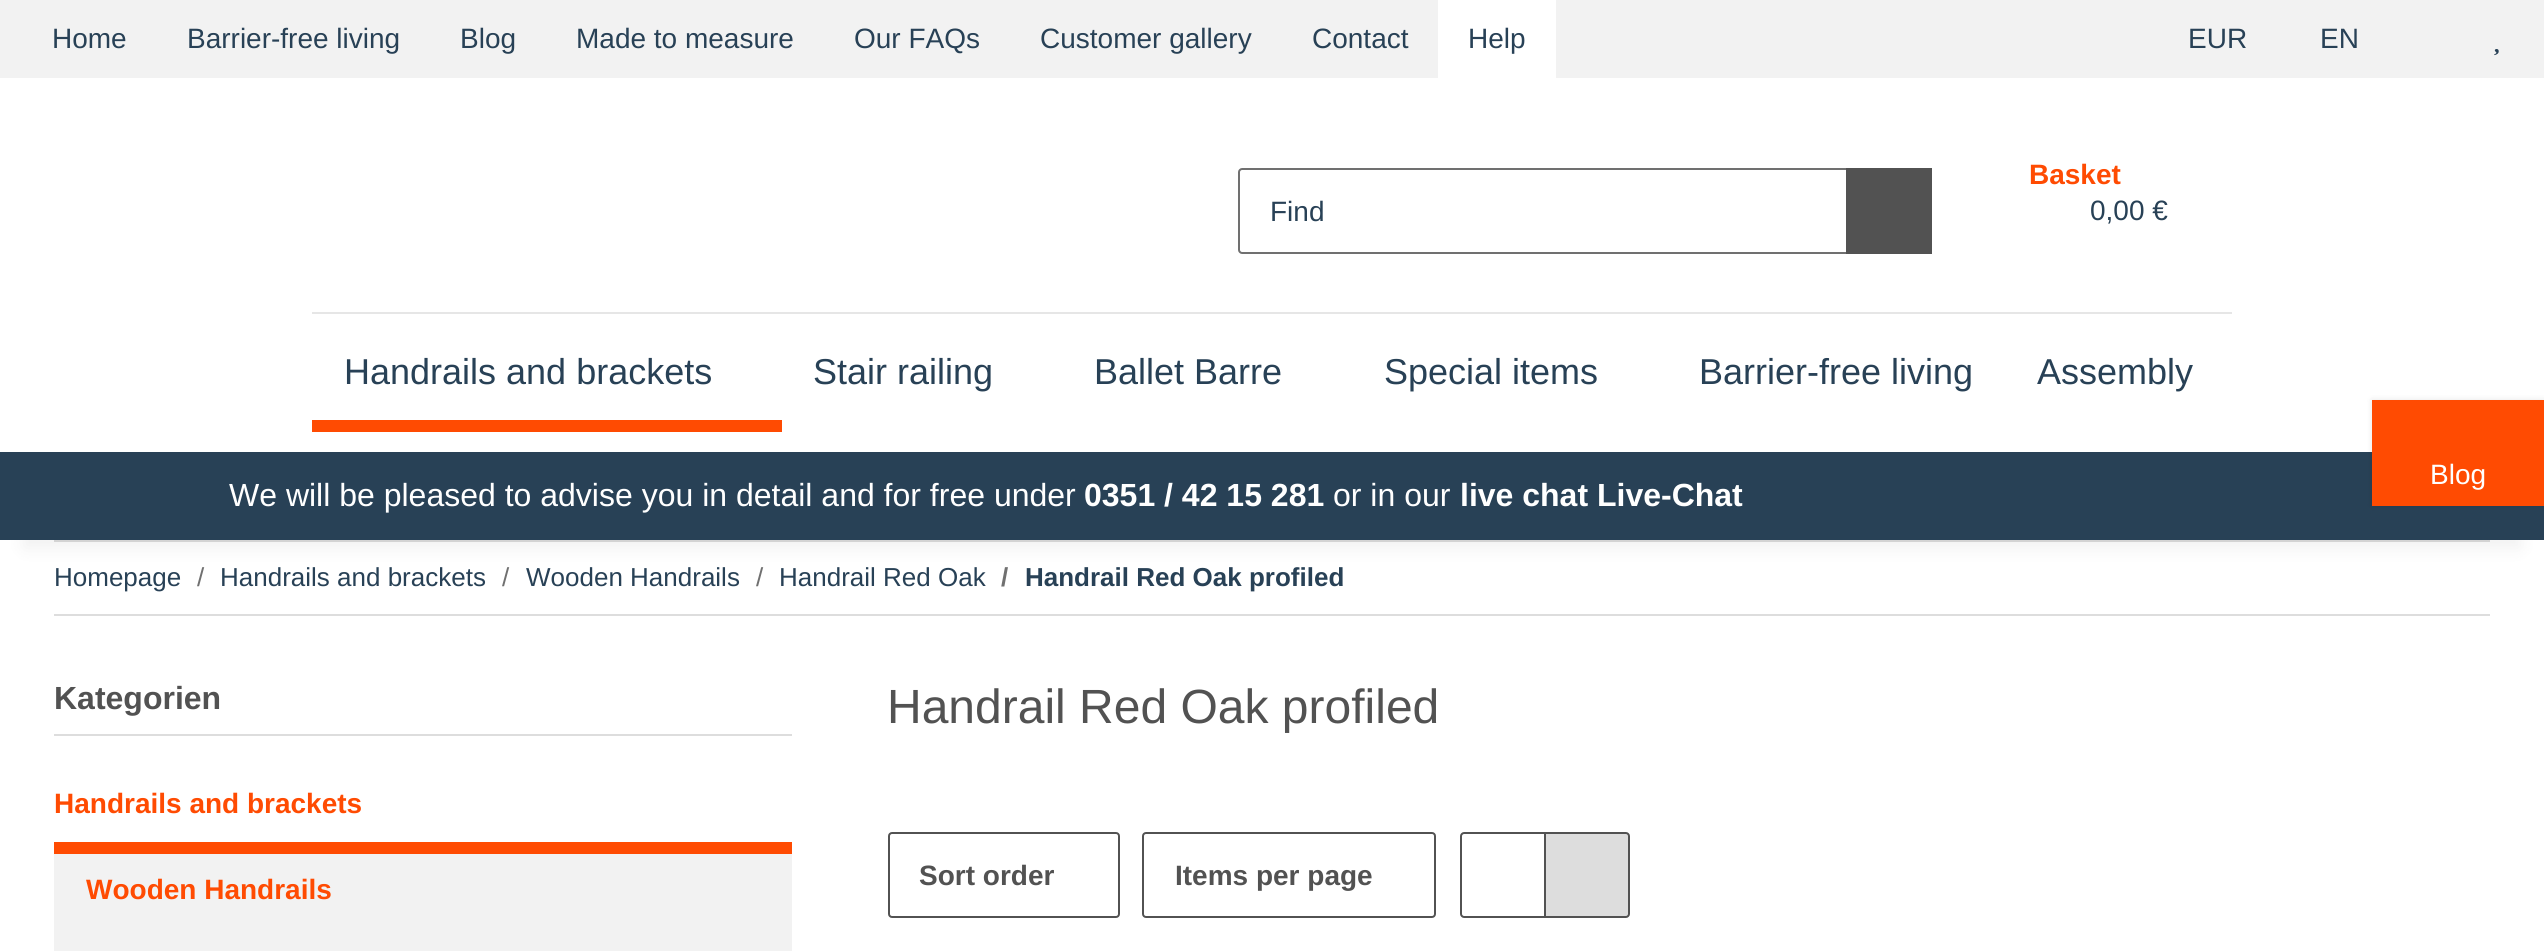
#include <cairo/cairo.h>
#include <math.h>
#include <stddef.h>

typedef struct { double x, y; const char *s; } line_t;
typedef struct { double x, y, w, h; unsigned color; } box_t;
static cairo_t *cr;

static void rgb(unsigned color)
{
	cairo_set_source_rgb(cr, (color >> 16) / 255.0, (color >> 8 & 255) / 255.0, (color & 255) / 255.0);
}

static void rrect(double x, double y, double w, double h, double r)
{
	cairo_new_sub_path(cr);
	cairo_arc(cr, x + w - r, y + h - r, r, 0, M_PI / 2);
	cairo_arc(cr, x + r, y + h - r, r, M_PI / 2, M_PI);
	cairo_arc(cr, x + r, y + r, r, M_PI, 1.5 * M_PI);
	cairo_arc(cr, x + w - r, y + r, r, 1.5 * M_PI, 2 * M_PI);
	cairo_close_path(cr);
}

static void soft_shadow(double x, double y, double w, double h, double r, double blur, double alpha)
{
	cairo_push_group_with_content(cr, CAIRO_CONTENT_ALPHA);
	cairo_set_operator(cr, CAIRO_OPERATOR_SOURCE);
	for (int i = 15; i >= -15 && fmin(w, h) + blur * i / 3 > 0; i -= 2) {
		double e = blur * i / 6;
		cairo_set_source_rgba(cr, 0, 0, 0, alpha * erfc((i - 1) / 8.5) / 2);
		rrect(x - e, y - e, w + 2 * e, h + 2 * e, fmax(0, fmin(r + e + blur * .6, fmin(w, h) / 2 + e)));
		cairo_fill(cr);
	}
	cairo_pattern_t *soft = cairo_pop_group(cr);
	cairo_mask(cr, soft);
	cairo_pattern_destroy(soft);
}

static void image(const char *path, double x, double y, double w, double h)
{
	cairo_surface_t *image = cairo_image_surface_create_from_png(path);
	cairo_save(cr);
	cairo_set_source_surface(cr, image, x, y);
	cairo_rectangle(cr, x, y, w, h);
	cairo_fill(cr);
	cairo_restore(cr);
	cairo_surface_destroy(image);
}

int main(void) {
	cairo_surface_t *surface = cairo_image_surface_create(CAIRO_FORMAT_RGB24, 2544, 951);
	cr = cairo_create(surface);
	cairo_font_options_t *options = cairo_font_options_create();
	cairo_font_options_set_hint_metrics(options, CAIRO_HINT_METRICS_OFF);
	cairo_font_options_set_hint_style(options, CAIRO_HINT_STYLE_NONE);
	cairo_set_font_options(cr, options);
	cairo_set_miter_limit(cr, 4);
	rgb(0xf2f2f2);
	cairo_paint(cr);
	rgb(0xffffff);
	cairo_rectangle(cr, 1438, 0, 118, 78);
	cairo_fill(cr);
	image("img/1.png", 2494, 49, 5, 7);
	cairo_rectangle(cr, 0, 540, 2544, 411);
	cairo_fill(cr);
	rgb(0xdddddd);
	cairo_rectangle(cr, 54, 540, 2436, 2);
	cairo_fill(cr);
	rgb(0x000000);
	soft_shadow(24, 134, 2496, 414, 0, 9, 0.06);
	rgb(0xffffff);
	cairo_rectangle(cr, 0, 78, 2544, 374);
	cairo_fill(cr);
	rgb(0xe6e6e6);
	cairo_rectangle(cr, 312, 312, 1920, 2);
	cairo_fill(cr);
	cairo_new_path(cr);
	cairo_move_to(cr, 1242, 169);
	cairo_line_to(cr, 1847, 169);
	cairo_line_to(cr, 1847, 253);
	cairo_line_to(cr, 1242, 253);
	cairo_curve_to(cr, 1240.5, 253, 1239, 251.5, 1239, 250);
	cairo_line_to(cr, 1239, 172);
	cairo_curve_to(cr, 1239, 170.5, 1240.5, 169, 1242, 169);
	cairo_close_path(cr);
	rgb(0x707070);
	cairo_stroke(cr);
	{
		static const box_t items[] = {
			{1846, 168, 86, 86, 0x525252},
			{312, 420, 470, 12, 0xff4b02},
			{0, 452, 2544, 88, 0x284156},
		};
		for (size_t i = 0; i < sizeof items / sizeof *items; i++) {
			rgb(items[i].color);
			cairo_rectangle(cr, items[i].x, items[i].y, items[i].w, items[i].h);
			cairo_fill(cr);
		}
	}
	rgb(0x000000);
	soft_shadow(2372, 400, 172, 106, 0, 3, 0.1);
	{
		static const box_t items[] = {
			{2372, 400, 172, 106, 0xff4b02},
			{54, 614, 2436, 2, 0xdddddd},
			{54, 734, 738, 2, 0xdddddd},
			{54, 842, 738, 12, 0xff4b02},
			{54, 854, 738, 97, 0xf2f2f2},
		};
		for (size_t i = 0; i < sizeof items / sizeof *items; i++) {
			rgb(items[i].color);
			cairo_rectangle(cr, items[i].x, items[i].y, items[i].w, items[i].h);
			cairo_fill(cr);
		}
	}
	rrect(889, 833, 230, 84, 3);
	rgb(0x525252);
	cairo_stroke(cr);
	rrect(1143, 833, 292, 84, 3);
	cairo_stroke(cr);
	cairo_new_path(cr);
	cairo_move_to(cr, 1464, 833);
	cairo_line_to(cr, 1545, 833);
	cairo_line_to(cr, 1545, 917);
	cairo_line_to(cr, 1464, 917);
	cairo_curve_to(cr, 1462.5, 917, 1461, 915.5, 1461, 914);
	cairo_line_to(cr, 1461, 836);
	cairo_curve_to(cr, 1461, 834.5, 1462.5, 833, 1464, 833);
	cairo_close_path(cr);
	cairo_stroke(cr);
	rgb(0xdddddd);
	cairo_new_path(cr);
	cairo_move_to(cr, 1545, 833);
	cairo_line_to(cr, 1626, 833);
	cairo_curve_to(cr, 1627.5, 833, 1629, 834.5, 1629, 836);
	cairo_line_to(cr, 1629, 914);
	cairo_curve_to(cr, 1629, 915.5, 1627.5, 917, 1626, 917);
	cairo_line_to(cr, 1545, 917);
	cairo_close_path(cr);
	cairo_fill_preserve(cr);
	rgb(0x525252);
	cairo_stroke(cr);
	cairo_select_font_face(cr, "Liberation Sans", CAIRO_FONT_SLANT_NORMAL, CAIRO_FONT_WEIGHT_NORMAL);
	cairo_set_font_size(cr, 28);
	rgb(0x284156);
	{
		static const line_t items[] = {
			{52, 48, "Home"},
			{187, 48, "Barrier-free living"},
			{460, 48, "Blog"},
			{576, 48, "Made to measure"},
			{854, 48, "Our FAQs"},
			{1040, 48, "Customer gallery"},
			{1312, 48, "Contact"},
			{1468, 48, "Help"},
			{2188, 48, "EUR"},
			{2320, 48, "EN"},
			{1270, 221, "Find"},
		};
		for (size_t i = 0; i < sizeof items / sizeof *items; i++) {
			cairo_move_to(cr, items[i].x, items[i].y);
			cairo_show_text(cr, items[i].s);
		}
	}
	cairo_select_font_face(cr, "Liberation Sans", CAIRO_FONT_SLANT_NORMAL, CAIRO_FONT_WEIGHT_BOLD);
	rgb(0xff4b02);
	cairo_move_to(cr, 2029, 184);
	cairo_show_text(cr, "Basket");
	cairo_select_font_face(cr, "Liberation Sans", CAIRO_FONT_SLANT_NORMAL, CAIRO_FONT_WEIGHT_NORMAL);
	rgb(0x284156);
	cairo_move_to(cr, 2090, 220);
	cairo_show_text(cr, "0,00 €");
	cairo_set_font_size(cr, 36);
	{
		static const line_t items[] = {
			{344, 384, "Handrails and brackets"},
			{813, 384, "Stair railing"},
			{1094, 384, "Ballet Barre"},
			{1384, 384, "Special items"},
			{1699, 384, "Barrier-free living"},
			{2037, 384, "Assembly"},
		};
		for (size_t i = 0; i < sizeof items / sizeof *items; i++) {
			cairo_move_to(cr, items[i].x, items[i].y);
			cairo_show_text(cr, items[i].s);
		}
	}
	cairo_set_font_size(cr, 32);
	rgb(0xffffff);
	cairo_move_to(cr, 229, 506);
	cairo_show_text(cr, "We will be pleased to advise you in detail and for free under");
	cairo_select_font_face(cr, "Liberation Sans", CAIRO_FONT_SLANT_NORMAL, CAIRO_FONT_WEIGHT_BOLD);
	cairo_move_to(cr, 1084, 506);
	cairo_show_text(cr, "0351 / 42 15 281");
	cairo_select_font_face(cr, "Liberation Sans", CAIRO_FONT_SLANT_NORMAL, CAIRO_FONT_WEIGHT_NORMAL);
	cairo_move_to(cr, 1333, 506);
	cairo_show_text(cr, "or in our");
	cairo_select_font_face(cr, "Liberation Sans", CAIRO_FONT_SLANT_NORMAL, CAIRO_FONT_WEIGHT_BOLD);
	cairo_move_to(cr, 1460, 506);
	cairo_show_text(cr, "live chat Live-Chat");
	cairo_select_font_face(cr, "Liberation Sans", CAIRO_FONT_SLANT_NORMAL, CAIRO_FONT_WEIGHT_NORMAL);
	cairo_set_font_size(cr, 28);
	cairo_move_to(cr, 2430, 484);
	cairo_show_text(cr, "Blog");
	cairo_set_font_size(cr, 26);
	rgb(0x284156);
	cairo_move_to(cr, 54, 586);
	cairo_show_text(cr, "Homepage");
	rgb(0x707070);
	cairo_move_to(cr, 197, 586);
	cairo_show_text(cr, "/");
	rgb(0x284156);
	cairo_move_to(cr, 220, 586);
	cairo_show_text(cr, "Handrails and brackets");
	rgb(0x707070);
	cairo_move_to(cr, 502, 586);
	cairo_show_text(cr, "/");
	rgb(0x284156);
	cairo_move_to(cr, 526, 586);
	cairo_show_text(cr, "Wooden Handrails");
	rgb(0x707070);
	cairo_move_to(cr, 756, 586);
	cairo_show_text(cr, "/");
	rgb(0x284156);
	cairo_move_to(cr, 779, 586);
	cairo_show_text(cr, "Handrail Red Oak");
	cairo_select_font_face(cr, "Liberation Sans", CAIRO_FONT_SLANT_NORMAL, CAIRO_FONT_WEIGHT_BOLD);
	rgb(0x707070);
	cairo_move_to(cr, 1001, 586);
	cairo_show_text(cr, "/");
	rgb(0x284156);
	cairo_move_to(cr, 1025, 586);
	cairo_show_text(cr, "Handrail Red Oak profiled");
	cairo_set_font_size(cr, 32);
	rgb(0x525252);
	cairo_move_to(cr, 54, 709);
	cairo_show_text(cr, "Kategorien");
	cairo_set_font_size(cr, 28);
	rgb(0xff4b02);
	cairo_move_to(cr, 54, 813);
	cairo_show_text(cr, "Handrails and brackets");
	cairo_move_to(cr, 86, 899);
	cairo_show_text(cr, "Wooden Handrails");
	cairo_select_font_face(cr, "Liberation Sans", CAIRO_FONT_SLANT_NORMAL, CAIRO_FONT_WEIGHT_NORMAL);
	cairo_set_font_size(cr, 48);
	rgb(0x525252);
	cairo_move_to(cr, 887, 723);
	cairo_show_text(cr, "Handrail Red Oak profiled");
	cairo_select_font_face(cr, "Liberation Sans", CAIRO_FONT_SLANT_NORMAL, CAIRO_FONT_WEIGHT_BOLD);
	cairo_set_font_size(cr, 28);
	cairo_move_to(cr, 919, 885);
	cairo_show_text(cr, "Sort order");
	cairo_move_to(cr, 1175, 885);
	cairo_show_text(cr, "Items per page");
	cairo_surface_write_to_png(surface, "page.png");
	cairo_font_options_destroy(options);
	cairo_destroy(cr);
	cairo_surface_destroy(surface);
	return 0;
}
